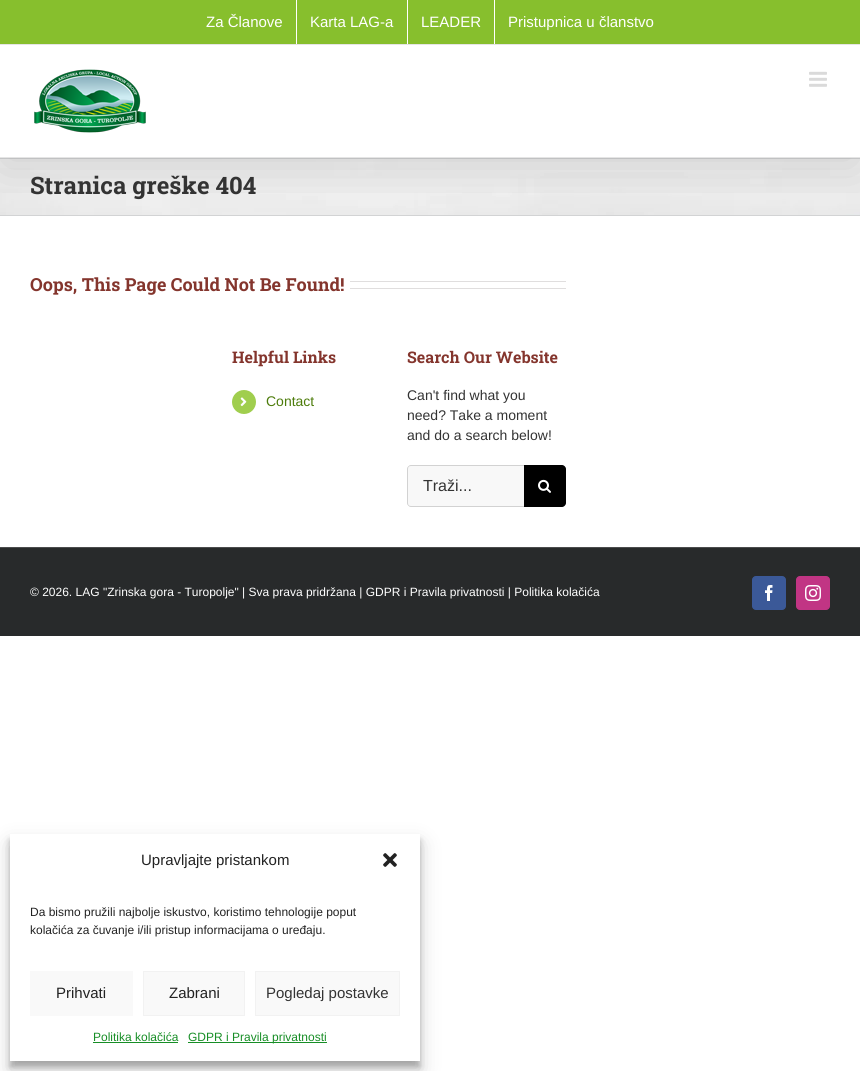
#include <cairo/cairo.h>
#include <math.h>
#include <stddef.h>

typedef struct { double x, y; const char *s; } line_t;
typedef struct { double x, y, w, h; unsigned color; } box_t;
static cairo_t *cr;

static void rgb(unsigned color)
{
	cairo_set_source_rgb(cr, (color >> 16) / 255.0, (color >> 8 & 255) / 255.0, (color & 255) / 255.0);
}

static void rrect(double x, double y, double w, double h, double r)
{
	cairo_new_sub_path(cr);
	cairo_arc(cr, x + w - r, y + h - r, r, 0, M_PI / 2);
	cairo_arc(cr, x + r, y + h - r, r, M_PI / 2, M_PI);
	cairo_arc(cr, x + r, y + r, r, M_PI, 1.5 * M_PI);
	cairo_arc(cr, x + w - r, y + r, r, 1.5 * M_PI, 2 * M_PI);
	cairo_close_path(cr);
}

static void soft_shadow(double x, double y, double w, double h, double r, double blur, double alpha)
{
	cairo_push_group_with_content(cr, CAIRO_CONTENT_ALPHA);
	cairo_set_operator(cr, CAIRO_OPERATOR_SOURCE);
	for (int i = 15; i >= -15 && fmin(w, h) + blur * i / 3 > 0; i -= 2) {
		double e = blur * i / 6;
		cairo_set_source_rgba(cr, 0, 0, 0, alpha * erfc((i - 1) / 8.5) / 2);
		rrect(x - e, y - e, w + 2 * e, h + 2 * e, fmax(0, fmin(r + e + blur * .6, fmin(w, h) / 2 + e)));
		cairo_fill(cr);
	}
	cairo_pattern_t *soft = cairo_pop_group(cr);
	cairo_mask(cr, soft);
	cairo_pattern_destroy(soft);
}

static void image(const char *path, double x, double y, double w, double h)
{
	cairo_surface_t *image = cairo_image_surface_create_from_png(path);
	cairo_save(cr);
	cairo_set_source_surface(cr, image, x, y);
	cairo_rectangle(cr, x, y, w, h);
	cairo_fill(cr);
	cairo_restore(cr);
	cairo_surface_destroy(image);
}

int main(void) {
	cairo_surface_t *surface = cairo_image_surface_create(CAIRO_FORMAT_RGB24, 860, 1071);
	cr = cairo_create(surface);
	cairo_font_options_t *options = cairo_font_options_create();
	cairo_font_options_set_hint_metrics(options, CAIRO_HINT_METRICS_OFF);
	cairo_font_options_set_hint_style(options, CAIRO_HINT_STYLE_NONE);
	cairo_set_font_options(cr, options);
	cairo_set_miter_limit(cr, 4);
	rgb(0xffffff);
	cairo_paint(cr);
	image("img/3.png", 0, 159, 860, 56);
	rgb(0xd2d3d4);
	cairo_rectangle(cr, 0, 158, 860, 1);
	cairo_fill(cr);
	cairo_rectangle(cr, 0, 215, 860, 1);
	cairo_fill(cr);
	cairo_save(cr);
	cairo_rectangle(cr, 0, 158, 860, 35);
	cairo_clip(cr);
	rgb(0x000000);
	soft_shadow(2, 12, 856, 154, 0, 25, 0.14);
	cairo_restore(cr);
	{
		static const box_t items[] = {
			{0, 0, 860, 44, 0x87bf2d},
			{0, 44, 860, 1, 0xe5e5e5},
			{296, 0, 1, 44, 0xffffff},
			{407, 0, 1, 44, 0xffffff},
			{494, 0, 1, 44, 0xffffff},
			{0, 157, 860, 1, 0xe5e5e5},
		};
		for (size_t i = 0; i < sizeof items / sizeof *items; i++) {
			rgb(items[i].color);
			cairo_rectangle(cr, items[i].x, items[i].y, items[i].w, items[i].h);
			cairo_fill(cr);
		}
	}
	image("img/1.png", 34, 69, 112, 64);
	image("img/2.png", 809, 71, 18, 16);
	rgb(0xe0dede);
	cairo_rectangle(cr, 350, 281, 216, 1);
	cairo_fill(cr);
	cairo_rectangle(cr, 350, 288, 216, 1);
	cairo_fill(cr);
	rgb(0xa0ce4e);
	cairo_arc(cr, 244, 402, 12, 0, 2 * M_PI);
	cairo_fill(cr);
	image("img/4.png", 240, 397, 7, 10);
	rgb(0xf8f8f8);
	cairo_new_path(cr);
	cairo_move_to(cr, 411, 465);
	cairo_line_to(cr, 524, 465);
	cairo_line_to(cr, 524, 507);
	cairo_line_to(cr, 411, 507);
	cairo_curve_to(cr, 409, 507, 407, 505, 407, 503);
	cairo_line_to(cr, 407, 469);
	cairo_curve_to(cr, 407, 467, 409, 465, 411, 465);
	cairo_close_path(cr);
	cairo_fill(cr);
	rgb(0xd2d2d2);
	cairo_set_fill_rule(cr, CAIRO_FILL_RULE_EVEN_ODD);
	cairo_new_path(cr);
	cairo_move_to(cr, 411, 465);
	cairo_line_to(cr, 524, 465);
	cairo_line_to(cr, 524, 507);
	cairo_line_to(cr, 411, 507);
	cairo_curve_to(cr, 409, 507, 407, 505, 407, 503);
	cairo_line_to(cr, 407, 469);
	cairo_curve_to(cr, 407, 467, 409, 465, 411, 465);
	cairo_close_path(cr);
	cairo_move_to(cr, 411, 466);
	cairo_line_to(cr, 524, 466);
	cairo_line_to(cr, 524, 506);
	cairo_line_to(cr, 411, 506);
	cairo_curve_to(cr, 409, 506, 408, 505, 408, 503);
	cairo_line_to(cr, 408, 469);
	cairo_curve_to(cr, 408, 467, 409, 466, 411, 466);
	cairo_close_path(cr);
	cairo_fill(cr);
	rgb(0x000000);
	cairo_new_path(cr);
	cairo_move_to(cr, 524, 465);
	cairo_line_to(cr, 562, 465);
	cairo_curve_to(cr, 564, 465, 566, 467, 566, 469);
	cairo_line_to(cr, 566, 503);
	cairo_curve_to(cr, 566, 505, 564, 507, 562, 507);
	cairo_line_to(cr, 524, 507);
	cairo_close_path(cr);
	cairo_fill(cr);
	image("img/5.png", 538, 479, 13, 14);
	rgb(0x282a2b);
	cairo_rectangle(cr, 0, 548, 860, 88);
	cairo_fill(cr);
	rgb(0x4b4c4d);
	cairo_rectangle(cr, 0, 547, 860, 1);
	cairo_fill(cr);
	rgb(0x3b5998);
	rrect(752.5, 576.5, 33, 33, 3.5);
	cairo_fill_preserve(cr);
	cairo_set_line_width(cr, 1);
	cairo_stroke(cr);
	image("img/6.png", 765, 585, 8, 16);
	rgb(0xc13584);
	rrect(796.5, 576.5, 33, 33, 3.5);
	cairo_fill_preserve(cr);
	cairo_stroke(cr);
	image("img/7.png", 805, 585, 16, 16);
	cairo_save(cr);
	cairo_new_path(cr);
	cairo_move_to(cr, 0, 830);
	cairo_line_to(cr, 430, 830);
	cairo_line_to(cr, 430, 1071);
	cairo_line_to(cr, 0, 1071);
	cairo_close_path(cr);
	cairo_move_to(cr, 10, 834);
	cairo_line_to(cr, 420, 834);
	cairo_line_to(cr, 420, 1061);
	cairo_line_to(cr, 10, 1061);
	cairo_close_path(cr);
	cairo_clip(cr);
	rgb(0x000000);
	soft_shadow(10, 840, 410, 227, 0, 3, 0.23);
	cairo_restore(cr);
	cairo_save(cr);
	cairo_new_path(cr);
	cairo_move_to(cr, 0, 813);
	cairo_line_to(cr, 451, 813);
	cairo_line_to(cr, 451, 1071);
	cairo_line_to(cr, 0, 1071);
	cairo_close_path(cr);
	cairo_move_to(cr, 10, 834);
	cairo_line_to(cr, 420, 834);
	cairo_line_to(cr, 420, 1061);
	cairo_line_to(cr, 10, 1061);
	cairo_close_path(cr);
	cairo_clip(cr);
	rgb(0x000000);
	soft_shadow(10, 844, 410, 227, 0, 10, 0.19);
	cairo_restore(cr);
	image("img/8.png", 383, 853, 14, 14);
	rgb(0xf9f9f9);
	cairo_rectangle(cr, 30, 971, 103, 45);
	cairo_fill(cr);
	cairo_rectangle(cr, 143.5, 971.5, 101, 44);
	cairo_fill_preserve(cr);
	rgb(0xf2f2f2);
	cairo_stroke(cr);
	rgb(0xf9f9f9);
	cairo_rectangle(cr, 255.5, 971.5, 144, 44);
	cairo_fill_preserve(cr);
	rgb(0xf2f2f2);
	cairo_stroke(cr);
	rgb(0x178e26);
	cairo_rectangle(cr, 93, 1042, 85, 1);
	cairo_fill(cr);
	cairo_rectangle(cr, 188, 1042, 139, 1);
	cairo_fill(cr);
	cairo_select_font_face(cr, "Liberation Sans", CAIRO_FONT_SLANT_NORMAL, CAIRO_FONT_WEIGHT_NORMAL);
	cairo_set_font_size(cr, 15);
	rgb(0xffffff);
	{
		static const line_t items[] = {
			{206, 27, "Za Članove"},
			{310, 27, "Karta LAG-a"},
			{421, 27, "LEADER"},
			{508, 27, "Pristupnica u članstvo"},
		};
		for (size_t i = 0; i < sizeof items / sizeof *items; i++) {
			cairo_move_to(cr, items[i].x, items[i].y);
			cairo_show_text(cr, items[i].s);
		}
	}
	cairo_select_font_face(cr, "Roboto Slab", CAIRO_FONT_SLANT_NORMAL, CAIRO_FONT_WEIGHT_BOLD);
	cairo_set_font_size(cr, 24);
	rgb(0x333333);
	cairo_move_to(cr, 30, 194);
	cairo_show_text(cr, "Stranica greške 404");
	cairo_set_font_size(cr, 18);
	rgb(0x84352d);
	cairo_move_to(cr, 30, 291);
	cairo_show_text(cr, "Oops, This Page Could Not Be Found!");
	cairo_set_font_size(cr, 16);
	cairo_move_to(cr, 232, 363);
	cairo_show_text(cr, "Helpful Links");
	cairo_select_font_face(cr, "Liberation Sans", CAIRO_FONT_SLANT_NORMAL, CAIRO_FONT_WEIGHT_NORMAL);
	cairo_set_font_size(cr, 14);
	rgb(0x4d7c0b);
	cairo_move_to(cr, 266, 406);
	cairo_show_text(cr, "Contact");
	cairo_select_font_face(cr, "Roboto Slab", CAIRO_FONT_SLANT_NORMAL, CAIRO_FONT_WEIGHT_BOLD);
	cairo_set_font_size(cr, 16);
	rgb(0x84352d);
	cairo_move_to(cr, 407, 363);
	cairo_show_text(cr, "Search Our Website");
	cairo_select_font_face(cr, "Liberation Sans", CAIRO_FONT_SLANT_NORMAL, CAIRO_FONT_WEIGHT_NORMAL);
	cairo_set_font_size(cr, 14);
	rgb(0x333333);
	{
		static const line_t items[] = {
			{407, 400, "Can't find what you"},
			{407, 420, "need? Take a moment"},
			{407, 440, "and do a search below!"},
		};
		for (size_t i = 0; i < sizeof items / sizeof *items; i++) {
			cairo_move_to(cr, items[i].x, items[i].y);
			cairo_show_text(cr, items[i].s);
		}
	}
	cairo_set_font_size(cr, 16);
	cairo_move_to(cr, 423, 491);
	cairo_show_text(cr, "Traži...");
	cairo_set_font_size(cr, 12);
	rgb(0xffffff);
	cairo_move_to(cr, 30, 596);
	cairo_show_text(cr, "© 2026. LAG \"Zrinska gora - Turopolje\" | Sva prava pridržana | GDPR i Pravila privatnosti | Politika kolačića");
	cairo_set_font_size(cr, 15);
	rgb(0x222222);
	cairo_move_to(cr, 141, 865);
	cairo_show_text(cr, "Upravljajte pristankom");
	cairo_set_font_size(cr, 12);
	cairo_move_to(cr, 30, 916);
	cairo_show_text(cr, "Da bismo pružili najbolje iskustvo, koristimo tehnologije poput");
	cairo_move_to(cr, 30, 934);
	cairo_show_text(cr, "kolačića za čuvanje i/ili pristup informacijama o uređaju.");
	cairo_set_font_size(cr, 15);
	cairo_move_to(cr, 56, 998);
	cairo_show_text(cr, "Prihvati");
	cairo_move_to(cr, 169, 998);
	cairo_show_text(cr, "Zabrani");
	rgb(0x333333);
	cairo_move_to(cr, 266, 998);
	cairo_show_text(cr, "Pogledaj postavke");
	cairo_set_font_size(cr, 12);
	rgb(0x178e26);
	cairo_move_to(cr, 93, 1041);
	cairo_show_text(cr, "Politika kolačića");
	cairo_move_to(cr, 188, 1041);
	cairo_show_text(cr, "GDPR i Pravila privatnosti");
	cairo_surface_write_to_png(surface, "page.png");
	cairo_font_options_destroy(options);
	cairo_destroy(cr);
	cairo_surface_destroy(surface);
	return 0;
}
